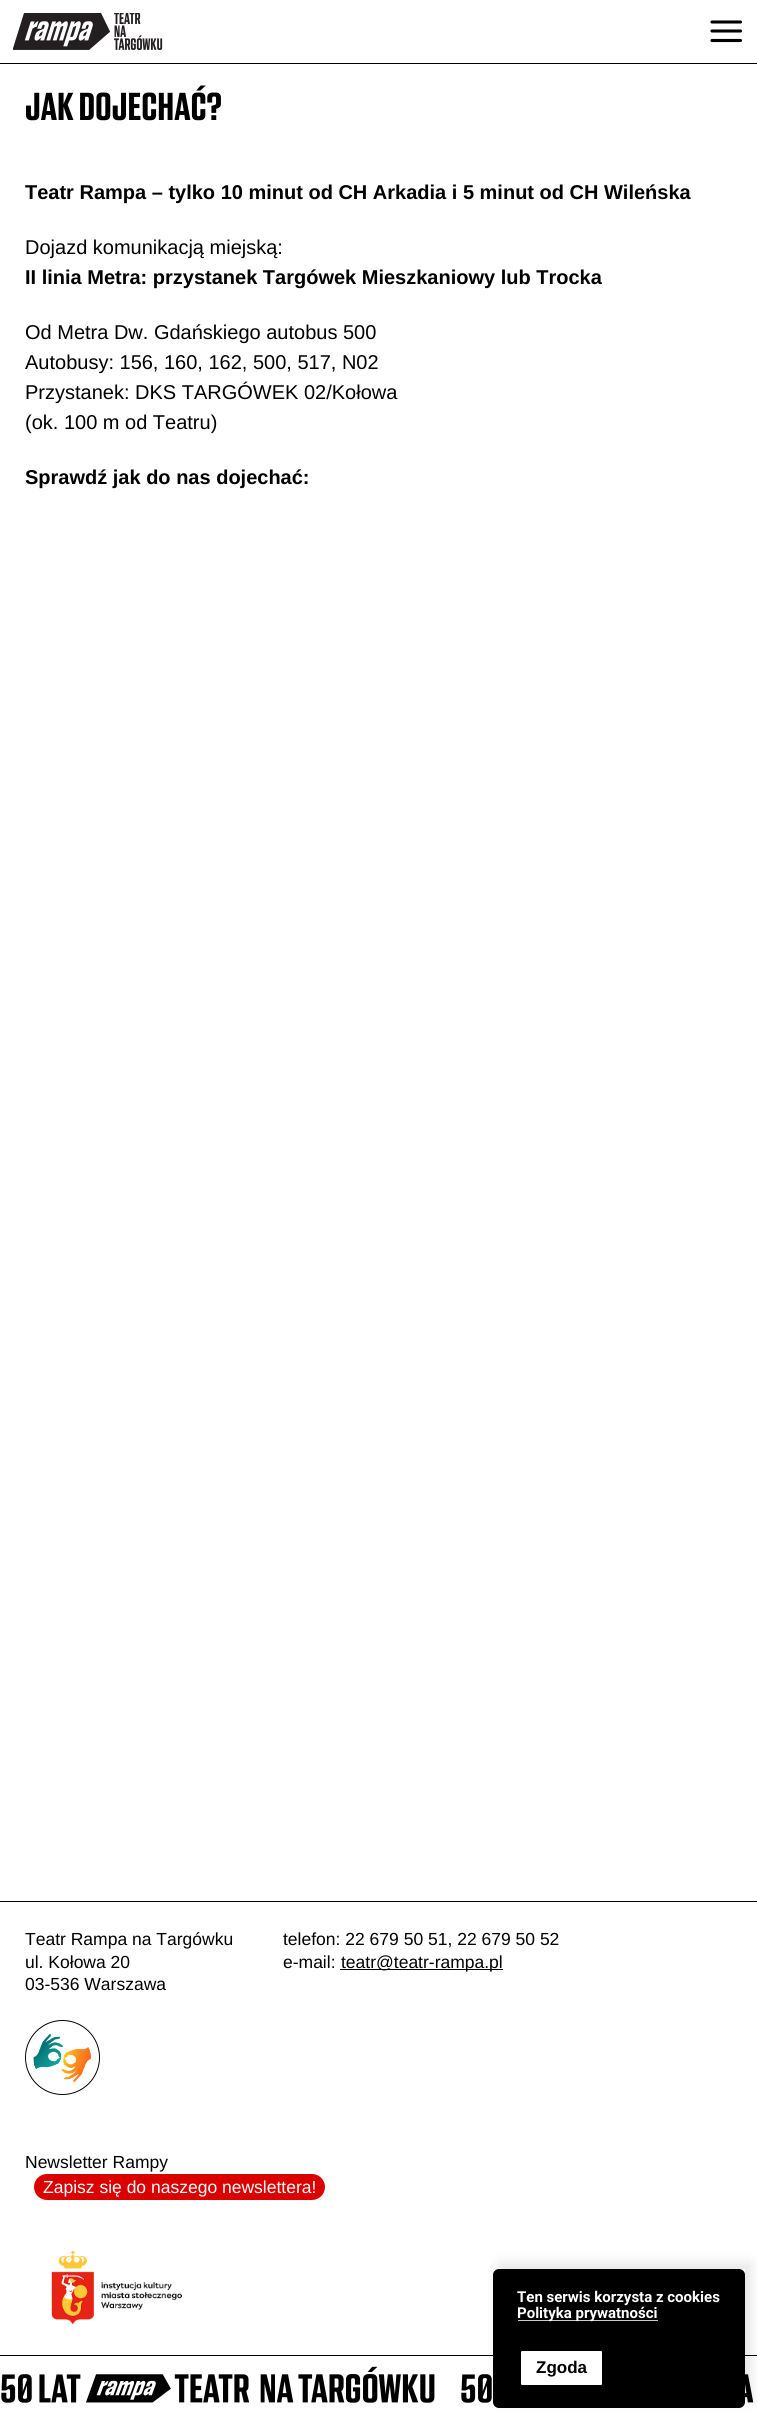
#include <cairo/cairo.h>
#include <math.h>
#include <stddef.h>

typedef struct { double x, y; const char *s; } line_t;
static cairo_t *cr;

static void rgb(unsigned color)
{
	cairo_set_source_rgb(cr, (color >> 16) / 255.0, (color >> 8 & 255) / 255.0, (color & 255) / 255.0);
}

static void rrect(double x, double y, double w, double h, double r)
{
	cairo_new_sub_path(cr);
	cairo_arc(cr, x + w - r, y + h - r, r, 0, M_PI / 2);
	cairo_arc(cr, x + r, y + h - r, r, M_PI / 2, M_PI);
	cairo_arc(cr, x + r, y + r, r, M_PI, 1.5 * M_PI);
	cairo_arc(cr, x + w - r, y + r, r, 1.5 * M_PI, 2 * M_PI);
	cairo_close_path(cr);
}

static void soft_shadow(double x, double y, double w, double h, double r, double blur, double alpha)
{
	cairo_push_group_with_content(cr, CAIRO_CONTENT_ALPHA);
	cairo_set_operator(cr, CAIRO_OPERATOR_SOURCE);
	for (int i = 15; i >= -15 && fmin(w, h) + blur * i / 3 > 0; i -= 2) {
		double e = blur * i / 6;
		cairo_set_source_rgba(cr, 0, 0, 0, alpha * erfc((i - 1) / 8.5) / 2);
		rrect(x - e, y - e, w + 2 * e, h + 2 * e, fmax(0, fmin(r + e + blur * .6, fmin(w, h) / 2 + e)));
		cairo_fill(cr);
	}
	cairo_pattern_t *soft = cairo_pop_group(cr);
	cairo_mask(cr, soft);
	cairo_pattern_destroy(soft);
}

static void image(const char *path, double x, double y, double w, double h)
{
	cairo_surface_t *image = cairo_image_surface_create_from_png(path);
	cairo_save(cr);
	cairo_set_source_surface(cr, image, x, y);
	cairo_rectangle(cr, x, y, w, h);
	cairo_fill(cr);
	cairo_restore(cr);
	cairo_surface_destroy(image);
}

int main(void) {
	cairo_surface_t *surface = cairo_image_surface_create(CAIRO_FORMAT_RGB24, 757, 2419);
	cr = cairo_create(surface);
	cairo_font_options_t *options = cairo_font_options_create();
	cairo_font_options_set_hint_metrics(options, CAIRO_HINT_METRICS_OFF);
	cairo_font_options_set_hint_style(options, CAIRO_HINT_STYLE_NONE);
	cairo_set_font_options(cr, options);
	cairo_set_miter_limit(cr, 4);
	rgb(0xffffff);
	cairo_paint(cr);
	rgb(0x000000);
	cairo_rectangle(cr, 0, 63, 757, 1);
	cairo_fill(cr);
	image("img/1.png", 13, 13, 150, 37);
	cairo_new_path(cr);
	cairo_move_to(cr, 712, 31);
	cairo_line_to(cr, 740.5, 31);
	cairo_move_to(cr, 712, 22);
	cairo_line_to(cr, 740.5, 22);
	cairo_move_to(cr, 712, 40.5);
	cairo_line_to(cr, 740.5, 40.5);
	cairo_set_line_width(cr, 3.1);
	cairo_set_line_cap(cr, CAIRO_LINE_CAP_ROUND);
	cairo_set_line_join(cr, CAIRO_LINE_JOIN_ROUND);
	cairo_stroke(cr);
	cairo_rectangle(cr, 0, 1901, 757, 1);
	cairo_fill(cr);
	cairo_rectangle(cr, 340, 1969, 163, 1);
	cairo_fill(cr);
	cairo_arc(cr, 62.5, 2057.5, 37, 0, 2 * M_PI);
	cairo_set_line_width(cr, 1);
	cairo_set_line_cap(cr, CAIRO_LINE_CAP_BUTT);
	cairo_set_line_join(cr, CAIRO_LINE_JOIN_MITER);
	cairo_stroke(cr);
	image("img/2.png", 26, 2021, 73, 73);
	rgb(0xdb0000);
	rrect(34, 2174, 291, 26, 13);
	cairo_fill(cr);
	image("img/3.png", 51, 2250, 131, 75);
	rgb(0x000000);
	cairo_rectangle(cr, 0, 2355, 757, 1);
	cairo_fill(cr);
	image("img/4.png", 1, 2366, 434, 37);
	image("img/5.png", 461, 2374, 293, 29);
	cairo_save(cr);
	cairo_set_fill_rule(cr, CAIRO_FILL_RULE_EVEN_ODD);
	cairo_new_path(cr);
	cairo_move_to(cr, 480, 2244);
	cairo_line_to(cr, 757, 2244);
	cairo_line_to(cr, 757, 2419);
	cairo_line_to(cr, 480, 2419);
	cairo_close_path(cr);
	cairo_move_to(cr, 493, 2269);
	cairo_line_to(cr, 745, 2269);
	cairo_line_to(cr, 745, 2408);
	cairo_line_to(cr, 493, 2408);
	cairo_close_path(cr);
	cairo_clip(cr);
	rgb(0x000000);
	soft_shadow(499, 2263, 252, 138, 0, 6, 0.1);
	cairo_restore(cr);
	rrect(493, 2269, 252, 139, 6);
	cairo_fill(cr);
	rgb(0xcccccc);
	cairo_rectangle(cr, 518, 2320, 140, 1);
	cairo_fill(cr);
	rgb(0xffffff);
	rrect(519.5, 2349.5, 84, 37, 2.5);
	cairo_fill_preserve(cr);
	rgb(0x000000);
	cairo_set_line_width(cr, 3);
	cairo_stroke(cr);
	cairo_select_font_face(cr, "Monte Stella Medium", CAIRO_FONT_SLANT_NORMAL, CAIRO_FONT_WEIGHT_NORMAL);
	cairo_set_font_size(cr, 40);
	cairo_move_to(cr, 25, 120);
	cairo_show_text(cr, "JAK DOJECHAĆ?");
	cairo_select_font_face(cr, "Liberation Sans", CAIRO_FONT_SLANT_NORMAL, CAIRO_FONT_WEIGHT_BOLD);
	cairo_set_font_size(cr, 20);
	cairo_move_to(cr, 25, 199);
	cairo_show_text(cr, "Teatr Rampa – tylko 10 minut od CH Arkadia i 5 minut od CH Wileńska");
	cairo_select_font_face(cr, "Liberation Sans", CAIRO_FONT_SLANT_NORMAL, CAIRO_FONT_WEIGHT_NORMAL);
	cairo_move_to(cr, 25, 254);
	cairo_show_text(cr, "Dojazd komunikacją miejską:");
	cairo_select_font_face(cr, "Liberation Sans", CAIRO_FONT_SLANT_NORMAL, CAIRO_FONT_WEIGHT_BOLD);
	cairo_move_to(cr, 25, 284);
	cairo_show_text(cr, "II linia Metra: przystanek Targówek Mieszkaniowy lub Trocka");
	cairo_select_font_face(cr, "Liberation Sans", CAIRO_FONT_SLANT_NORMAL, CAIRO_FONT_WEIGHT_NORMAL);
	{
		static const line_t items[] = {
			{25, 339, "Od Metra Dw. Gdańskiego autobus 500"},
			{25, 369, "Autobusy: 156, 160, 162, 500, 517, N02"},
			{25, 399, "Przystanek: DKS TARGÓWEK 02/Kołowa"},
			{25, 429, "(ok. 100 m od Teatru)"},
		};
		for (size_t i = 0; i < sizeof items / sizeof *items; i++) {
			cairo_move_to(cr, items[i].x, items[i].y);
			cairo_show_text(cr, items[i].s);
		}
	}
	cairo_select_font_face(cr, "Liberation Sans", CAIRO_FONT_SLANT_NORMAL, CAIRO_FONT_WEIGHT_BOLD);
	cairo_move_to(cr, 25, 484);
	cairo_show_text(cr, "Sprawdź jak do nas dojechać:");
	cairo_select_font_face(cr, "Liberation Sans", CAIRO_FONT_SLANT_NORMAL, CAIRO_FONT_WEIGHT_NORMAL);
	cairo_set_font_size(cr, 17.5);
	{
		static const line_t items[] = {
			{25, 1945, "Teatr Rampa na Targówku"},
			{25, 1968, "ul. Kołowa 20"},
			{25, 1990, "03-536 Warszawa"},
			{283, 1945, "telefon: 22 679 50 51, 22 679 50 52"},
			{283, 1968, "e-mail:"},
			{341, 1968, "teatr@teatr-rampa.pl"},
			{25, 2168, "Newsletter Rampy"},
		};
		for (size_t i = 0; i < sizeof items / sizeof *items; i++) {
			cairo_move_to(cr, items[i].x, items[i].y);
			cairo_show_text(cr, items[i].s);
		}
	}
	rgb(0xffffff);
	cairo_move_to(cr, 43, 2193);
	cairo_show_text(cr, "Zapisz się do naszego newslettera!");
	cairo_select_font_face(cr, "Roboto", CAIRO_FONT_SLANT_NORMAL, CAIRO_FONT_WEIGHT_BOLD);
	cairo_set_font_size(cr, 15);
	cairo_move_to(cr, 517, 2302);
	cairo_show_text(cr, "Ten serwis korzysta z cookies");
	cairo_move_to(cr, 517, 2318);
	cairo_show_text(cr, "Polityka prywatności");
	cairo_select_font_face(cr, "Liberation Sans", CAIRO_FONT_SLANT_NORMAL, CAIRO_FONT_WEIGHT_BOLD);
	cairo_set_font_size(cr, 17);
	rgb(0x000000);
	cairo_move_to(cr, 536, 2373);
	cairo_show_text(cr, "Zgoda");
	cairo_surface_write_to_png(surface, "page.png");
	cairo_font_options_destroy(options);
	cairo_destroy(cr);
	cairo_surface_destroy(surface);
	return 0;
}
